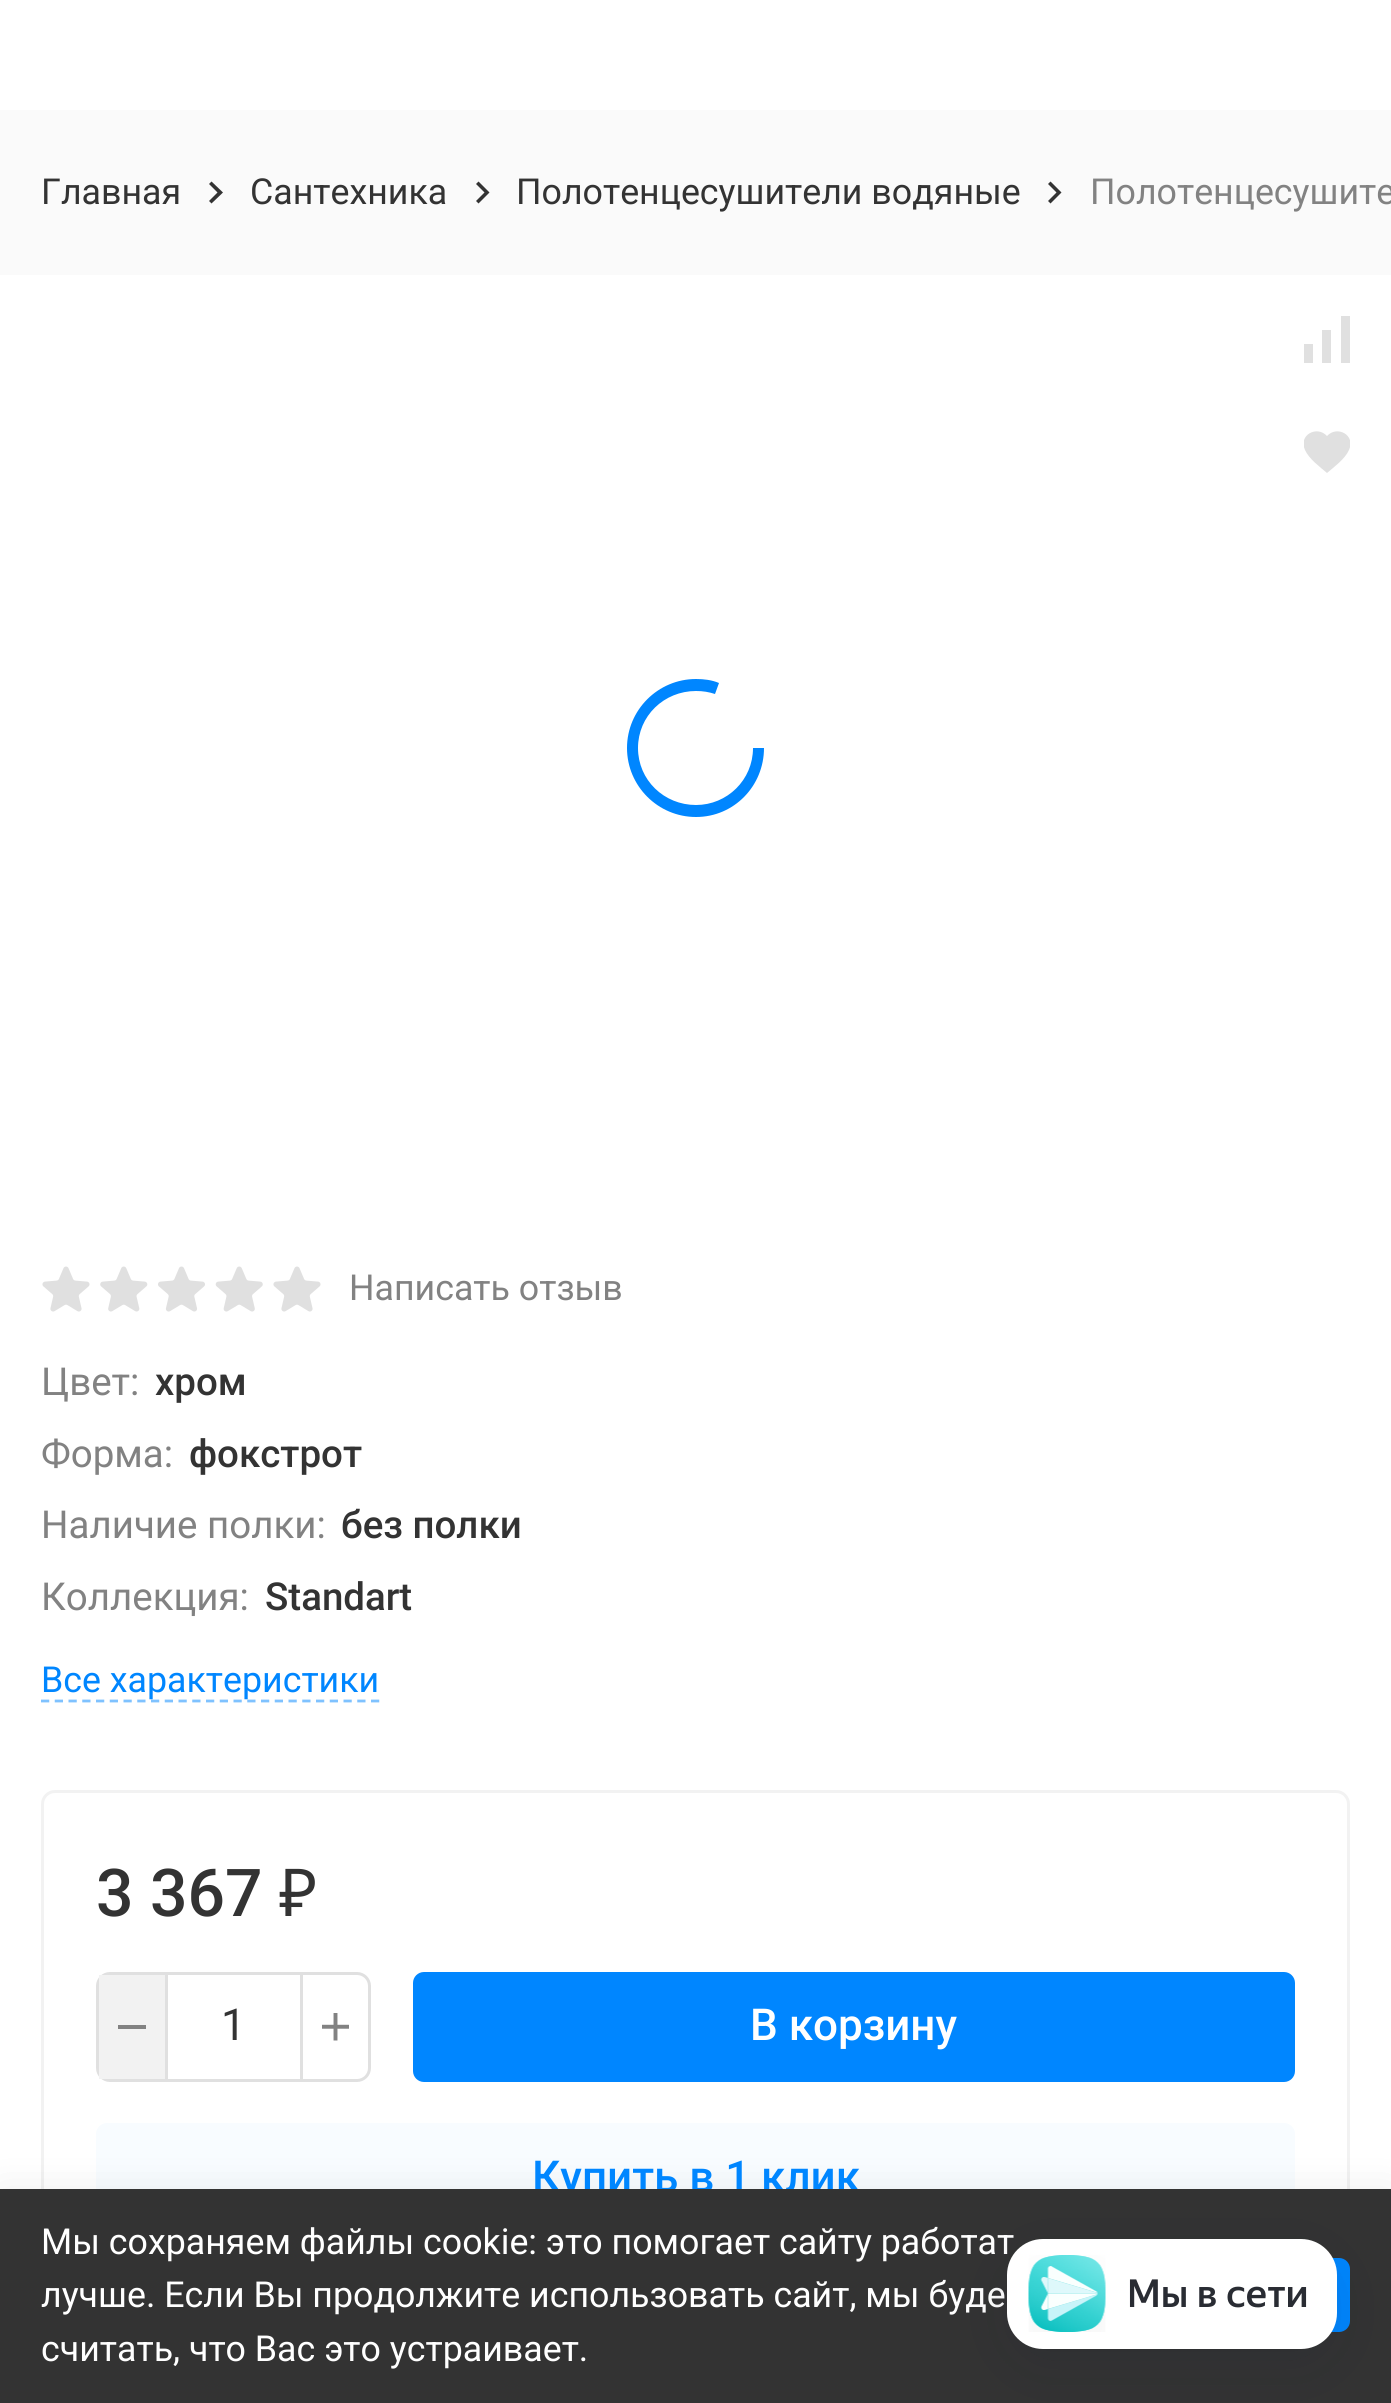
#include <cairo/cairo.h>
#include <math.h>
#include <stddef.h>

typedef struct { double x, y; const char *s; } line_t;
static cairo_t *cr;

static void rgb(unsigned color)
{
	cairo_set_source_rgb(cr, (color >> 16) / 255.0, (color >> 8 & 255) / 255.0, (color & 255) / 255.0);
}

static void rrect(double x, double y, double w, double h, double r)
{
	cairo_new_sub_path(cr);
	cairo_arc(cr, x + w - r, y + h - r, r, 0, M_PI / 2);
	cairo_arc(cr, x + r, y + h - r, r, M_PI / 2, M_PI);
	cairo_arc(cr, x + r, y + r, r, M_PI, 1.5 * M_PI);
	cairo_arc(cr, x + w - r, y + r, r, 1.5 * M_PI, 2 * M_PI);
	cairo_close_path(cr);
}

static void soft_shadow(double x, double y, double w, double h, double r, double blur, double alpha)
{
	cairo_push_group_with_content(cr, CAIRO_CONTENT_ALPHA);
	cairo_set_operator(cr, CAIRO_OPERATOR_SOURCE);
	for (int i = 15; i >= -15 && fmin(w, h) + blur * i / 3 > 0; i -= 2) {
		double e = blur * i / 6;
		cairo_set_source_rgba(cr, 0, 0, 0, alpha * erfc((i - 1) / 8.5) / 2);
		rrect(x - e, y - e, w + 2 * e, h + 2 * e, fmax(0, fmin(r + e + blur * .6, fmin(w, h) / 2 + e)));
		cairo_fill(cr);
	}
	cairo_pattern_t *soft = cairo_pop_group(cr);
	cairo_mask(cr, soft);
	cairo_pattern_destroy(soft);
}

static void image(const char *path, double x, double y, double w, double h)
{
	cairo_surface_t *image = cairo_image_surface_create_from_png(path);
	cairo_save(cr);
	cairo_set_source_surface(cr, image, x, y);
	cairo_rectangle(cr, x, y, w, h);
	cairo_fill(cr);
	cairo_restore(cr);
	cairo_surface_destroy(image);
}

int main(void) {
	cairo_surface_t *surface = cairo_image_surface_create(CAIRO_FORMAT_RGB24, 1391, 2403);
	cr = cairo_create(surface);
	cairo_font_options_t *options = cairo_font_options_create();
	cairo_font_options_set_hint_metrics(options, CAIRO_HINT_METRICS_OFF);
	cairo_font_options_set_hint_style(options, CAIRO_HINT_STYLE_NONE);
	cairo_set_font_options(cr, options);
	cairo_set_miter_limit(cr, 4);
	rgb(0xffffff);
	cairo_paint(cr);
	rgb(0xfafafa);
	cairo_rectangle(cr, 0, 110, 1391, 165);
	cairo_fill(cr);
	rgb(0x333333);
	cairo_new_path(cr);
	cairo_move_to(cr, 209, 201);
	cairo_line_to(cr, 217.5, 192.5);
	cairo_line_to(cr, 209, 184);
	cairo_line_to(cr, 211.5, 181.5);
	cairo_line_to(cr, 223, 192.5);
	cairo_line_to(cr, 211.5, 203.5);
	cairo_close_path(cr);
	cairo_fill(cr);
	cairo_new_path(cr);
	cairo_move_to(cr, 476, 201);
	cairo_line_to(cr, 484.5, 192.5);
	cairo_line_to(cr, 476, 184);
	cairo_line_to(cr, 478.5, 181.5);
	cairo_line_to(cr, 489.5, 192.5);
	cairo_line_to(cr, 478.5, 203.5);
	cairo_close_path(cr);
	cairo_fill(cr);
	cairo_new_path(cr);
	cairo_move_to(cr, 1048, 201);
	cairo_line_to(cr, 1056.5, 192.5);
	cairo_line_to(cr, 1048, 184);
	cairo_line_to(cr, 1050.5, 181.5);
	cairo_line_to(cr, 1061.5, 192.5);
	cairo_line_to(cr, 1050.5, 203.5);
	cairo_close_path(cr);
	cairo_fill(cr);
	rgb(0xe0e0e0);
	cairo_new_path(cr);
	cairo_move_to(cr, 1322, 363);
	cairo_line_to(cr, 1322, 330);
	cairo_line_to(cr, 1331, 330);
	cairo_line_to(cr, 1331, 363);
	cairo_close_path(cr);
	cairo_move_to(cr, 1341, 363);
	cairo_line_to(cr, 1341, 316);
	cairo_line_to(cr, 1350, 316);
	cairo_line_to(cr, 1350, 363);
	cairo_close_path(cr);
	cairo_move_to(cr, 1304, 363);
	cairo_line_to(cr, 1304, 344);
	cairo_line_to(cr, 1313, 344);
	cairo_line_to(cr, 1313, 363);
	cairo_close_path(cr);
	cairo_fill(cr);
	cairo_save(cr);
	cairo_rectangle(cr, 1304, 429, 46, 47);
	cairo_clip(cr);
	cairo_new_path(cr);
	cairo_move_to(cr, 1327, 473);
	cairo_curve_to(cr, 1320, 467, 1309, 459, 1305, 450);
	cairo_curve_to(cr, 1298, 435, 1317, 425, 1327, 436);
	cairo_curve_to(cr, 1337, 425, 1356, 435, 1349, 450);
	cairo_curve_to(cr, 1345, 459, 1334, 467, 1327, 473);
	cairo_close_path(cr);
	cairo_fill(cr);
	cairo_restore(cr);
	rgb(0x0086ff);
	cairo_new_path(cr);
	cairo_move_to(cr, 696, 805);
	cairo_curve_to(cr, 664, 805, 638, 780, 638, 748);
	cairo_curve_to(cr, 638, 716, 664, 691, 696, 691);
	cairo_curve_to(cr, 703, 691, 709, 692, 715, 694);
	cairo_line_to(cr, 719, 683);
	cairo_curve_to(cr, 712, 680, 704, 679, 696, 679);
	cairo_curve_to(cr, 658, 679, 627, 710, 627, 748);
	cairo_curve_to(cr, 627, 786, 658, 817, 696, 817);
	cairo_curve_to(cr, 734, 817, 764, 786, 764, 748);
	cairo_line_to(cr, 753, 748);
	cairo_curve_to(cr, 753, 780, 727, 805, 696, 805);
	cairo_close_path(cr);
	cairo_fill(cr);
	image("img/1.png", 42, 1266, 48, 46);
	image("img/2.png", 100, 1266, 48, 46);
	image("img/3.png", 158, 1266, 47, 46);
	image("img/4.png", 215, 1266, 48, 46);
	image("img/1.png", 273, 1266, 48, 46);
	cairo_new_path(cr);
	cairo_move_to(cr, 41, 1701);
	cairo_line_to(cr, 379.5, 1701);
	rgb(0x7fc2ff);
	cairo_set_line_width(cr, 2.8);
	cairo_set_dash(cr, (double[]){8.25, 5.5}, 2, 0);
	cairo_stroke(cr);
	rrect(42.5, 1791.5, 1306, 495, 12.5);
	rgb(0xf2f2f2);
	cairo_set_line_width(cr, 3);
	cairo_set_dash(cr, NULL, 0, 0);
	cairo_stroke(cr);
	rrect(97.5, 1973.5, 272, 107, 12.5);
	rgb(0xe0e0e0);
	cairo_stroke(cr);
	rgb(0xf2f2f2);
	cairo_rectangle(cr, 99, 1975, 66, 104);
	cairo_fill(cr);
	rgb(0x828282);
	cairo_rectangle(cr, 118, 2025, 28, 4);
	cairo_fill(cr);
	cairo_rectangle(cr, 166.5, 1973.5, 135, 107);
	rgb(0xe0e0e0);
	cairo_stroke(cr);
	image("img/5.png", 322, 2013, 27, 28);
	rgb(0x0086ff);
	rrect(413, 1972, 882, 110, 11);
	cairo_fill(cr);
	rgb(0xf8fcff);
	rrect(96, 2123, 1199, 110, 11);
	cairo_fill(cr);
	rgb(0x000000);
	soft_shadow(0, 2189, 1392, 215, 0, 20.5, 0.07);
	cairo_select_font_face(cr, "Roboto", CAIRO_FONT_SLANT_NORMAL, CAIRO_FONT_WEIGHT_NORMAL);
	cairo_set_font_size(cr, 35.75);
	rgb(0x333333);
	{
		static const line_t items[] = {
			{41, 204, "Главная"},
			{250, 204, "Сантехника"},
			{516, 204, "Полотенцесушители водяные"},
		};
		for (size_t i = 0; i < sizeof items / sizeof *items; i++) {
			cairo_move_to(cr, items[i].x, items[i].y);
			cairo_show_text(cr, items[i].s);
		}
	}
	rgb(0x828282);
	cairo_move_to(cr, 1090, 204);
	cairo_show_text(cr, "Полотенцесушите");
	cairo_move_to(cr, 349, 1300);
	cairo_show_text(cr, "Написать отзыв");
	cairo_set_font_size(cr, 38.5);
	cairo_move_to(cr, 41, 1395);
	cairo_show_text(cr, "Цвет:");
	cairo_select_font_face(cr, "Roboto Medium", CAIRO_FONT_SLANT_NORMAL, CAIRO_FONT_WEIGHT_NORMAL);
	rgb(0x333333);
	cairo_move_to(cr, 155, 1395);
	cairo_show_text(cr, "хром");
	cairo_select_font_face(cr, "Roboto", CAIRO_FONT_SLANT_NORMAL, CAIRO_FONT_WEIGHT_NORMAL);
	rgb(0x828282);
	cairo_move_to(cr, 41, 1467);
	cairo_show_text(cr, "Форма:");
	cairo_select_font_face(cr, "Roboto Medium", CAIRO_FONT_SLANT_NORMAL, CAIRO_FONT_WEIGHT_NORMAL);
	rgb(0x333333);
	cairo_move_to(cr, 189, 1467);
	cairo_show_text(cr, "фокстрот");
	cairo_select_font_face(cr, "Roboto", CAIRO_FONT_SLANT_NORMAL, CAIRO_FONT_WEIGHT_NORMAL);
	rgb(0x828282);
	cairo_move_to(cr, 41, 1538);
	cairo_show_text(cr, "Наличие полки:");
	cairo_select_font_face(cr, "Roboto Medium", CAIRO_FONT_SLANT_NORMAL, CAIRO_FONT_WEIGHT_NORMAL);
	rgb(0x333333);
	cairo_move_to(cr, 341, 1538);
	cairo_show_text(cr, "без полки");
	cairo_select_font_face(cr, "Roboto", CAIRO_FONT_SLANT_NORMAL, CAIRO_FONT_WEIGHT_NORMAL);
	rgb(0x828282);
	cairo_move_to(cr, 41, 1610);
	cairo_show_text(cr, "Коллекция:");
	cairo_select_font_face(cr, "Roboto Medium", CAIRO_FONT_SLANT_NORMAL, CAIRO_FONT_WEIGHT_NORMAL);
	rgb(0x333333);
	cairo_move_to(cr, 265, 1610);
	cairo_show_text(cr, "Standart");
	cairo_select_font_face(cr, "Roboto", CAIRO_FONT_SLANT_NORMAL, CAIRO_FONT_WEIGHT_NORMAL);
	cairo_set_font_size(cr, 35.75);
	rgb(0x0086ff);
	cairo_move_to(cr, 41, 1692);
	cairo_show_text(cr, "Все характеристики");
	cairo_select_font_face(cr, "Roboto Medium", CAIRO_FONT_SLANT_NORMAL, CAIRO_FONT_WEIGHT_NORMAL);
	cairo_set_font_size(cr, 66);
	rgb(0x333333);
	cairo_move_to(cr, 96, 1916);
	cairo_show_text(cr, "3 367");
	cairo_select_font_face(cr, "Noto Sans", CAIRO_FONT_SLANT_NORMAL, CAIRO_FONT_WEIGHT_NORMAL);
	cairo_move_to(cr, 279, 1916);
	cairo_show_text(cr, "₽");
	cairo_select_font_face(cr, "Roboto", CAIRO_FONT_SLANT_NORMAL, CAIRO_FONT_WEIGHT_NORMAL);
	cairo_set_font_size(cr, 44);
	cairo_move_to(cr, 221, 2040);
	cairo_show_text(cr, "1");
	cairo_select_font_face(cr, "Roboto Medium", CAIRO_FONT_SLANT_NORMAL, CAIRO_FONT_WEIGHT_NORMAL);
	rgb(0xffffff);
	cairo_move_to(cr, 750, 2040);
	cairo_show_text(cr, "В корзину");
	rgb(0x0086ff);
	cairo_move_to(cr, 532, 2192);
	cairo_show_text(cr, "Купить в 1 клик");
	rgb(0x333333);
	cairo_rectangle(cr, 0, 2189, 1391, 214);
	cairo_fill(cr);
	cairo_select_font_face(cr, "Roboto", CAIRO_FONT_SLANT_NORMAL, CAIRO_FONT_WEIGHT_NORMAL);
	cairo_set_font_size(cr, 35.75);
	rgb(0xffffff);
	{
		static const line_t items[] = {
			{41, 2254, "Мы сохраняем файлы cookie: это помогает сайту работат"},
			{41, 2307, "лучше. Если Вы продолжите использовать сайт, мы буде"},
			{41, 2361, "считать, что Вас это устраивает."},
		};
		for (size_t i = 0; i < sizeof items / sizeof *items; i++) {
			cairo_move_to(cr, items[i].x, items[i].y);
			cairo_show_text(cr, items[i].s);
		}
	}
	rgb(0x0086ff);
	rrect(1163, 2258, 187, 74, 11);
	cairo_fill(cr);
	rgb(0x0e152f);
	soft_shadow(1007, 2255, 330, 110, 36, 25, 0.13);
	rgb(0xffffff);
	rrect(1007, 2239, 330, 110, 36);
	cairo_fill(cr);
	image("img/6.png", 1028, 2255, 78, 77);
	cairo_select_font_face(cr, "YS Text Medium", CAIRO_FONT_SLANT_NORMAL, CAIRO_FONT_WEIGHT_NORMAL);
	cairo_set_font_size(cr, 38.5);
	rgb(0x292c33);
	cairo_move_to(cr, 1127, 2307);
	cairo_show_text(cr, "Мы в сети");
	cairo_surface_write_to_png(surface, "page.png");
	cairo_font_options_destroy(options);
	cairo_destroy(cr);
	cairo_surface_destroy(surface);
	return 0;
}
